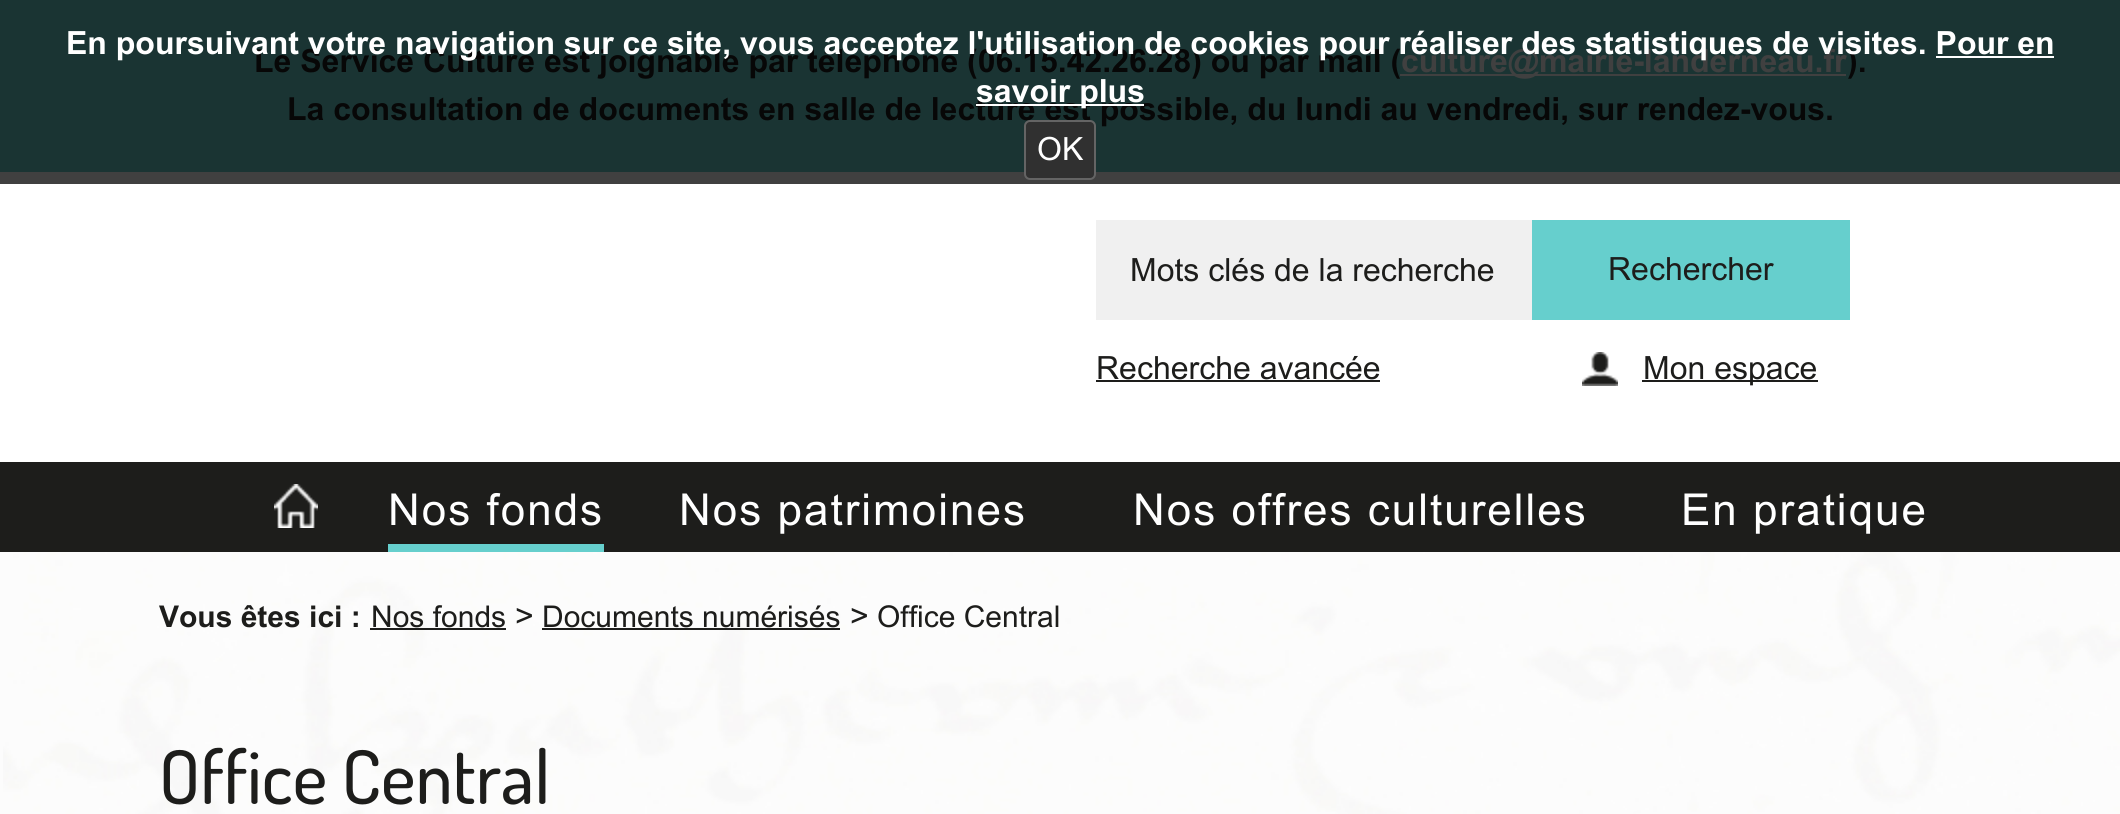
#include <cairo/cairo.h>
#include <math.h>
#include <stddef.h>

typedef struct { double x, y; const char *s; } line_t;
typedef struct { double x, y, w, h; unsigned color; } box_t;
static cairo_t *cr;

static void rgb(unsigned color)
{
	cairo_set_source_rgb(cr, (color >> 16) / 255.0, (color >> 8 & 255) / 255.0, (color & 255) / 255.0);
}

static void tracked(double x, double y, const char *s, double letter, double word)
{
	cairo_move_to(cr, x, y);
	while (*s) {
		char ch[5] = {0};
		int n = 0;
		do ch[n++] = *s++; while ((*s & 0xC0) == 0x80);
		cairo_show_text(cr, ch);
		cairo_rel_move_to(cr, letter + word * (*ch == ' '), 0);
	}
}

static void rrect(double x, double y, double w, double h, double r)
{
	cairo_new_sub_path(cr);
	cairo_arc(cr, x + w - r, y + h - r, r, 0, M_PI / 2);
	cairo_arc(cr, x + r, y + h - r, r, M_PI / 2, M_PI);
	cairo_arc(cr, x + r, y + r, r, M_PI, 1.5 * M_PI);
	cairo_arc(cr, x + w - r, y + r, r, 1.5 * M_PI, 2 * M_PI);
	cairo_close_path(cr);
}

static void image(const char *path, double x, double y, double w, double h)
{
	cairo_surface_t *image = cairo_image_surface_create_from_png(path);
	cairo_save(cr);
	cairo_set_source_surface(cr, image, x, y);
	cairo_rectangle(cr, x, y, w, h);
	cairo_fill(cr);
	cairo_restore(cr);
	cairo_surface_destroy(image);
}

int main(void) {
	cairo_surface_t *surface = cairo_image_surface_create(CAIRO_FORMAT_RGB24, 2120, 814);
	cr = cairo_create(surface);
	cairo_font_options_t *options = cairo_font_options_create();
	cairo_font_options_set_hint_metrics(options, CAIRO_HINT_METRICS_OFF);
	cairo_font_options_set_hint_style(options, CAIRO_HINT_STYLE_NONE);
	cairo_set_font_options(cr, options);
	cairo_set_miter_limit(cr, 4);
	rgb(0xffffff);
	cairo_paint(cr);
	{
		static const box_t items[] = {
			{0, 172, 2120, 12, 0x404040},
			{0, 0, 2120, 172, 0x1a3433},
			{1936, 56, 118, 2, 0xffffff},
			{1400, 74, 446, 2, 0x404040},
			{1096, 220, 436, 100, 0xf0f0f0},
			{1532, 220, 318, 100, 0x66cfcd},
			{1096, 380, 284, 2, 0x1d1d1b},
		};
		for (size_t i = 0; i < sizeof items / sizeof *items; i++) {
			rgb(items[i].color);
			cairo_rectangle(cr, items[i].x, items[i].y, items[i].w, items[i].h);
			cairo_fill(cr);
		}
	}
	image("img/1.png", 1582, 352, 36, 34);
	cairo_rectangle(cr, 1642, 380, 176, 2);
	cairo_fill(cr);
	cairo_rectangle(cr, 0, 462, 2120, 90);
	cairo_fill(cr);
	image("img/2.png", 274, 484, 44, 44);
	rgb(0x66cfcd);
	cairo_rectangle(cr, 388, 544, 216, 8);
	cairo_fill(cr);
	rgb(0xfcfcfc);
	cairo_rectangle(cr, 0, 552, 3, 262);
	cairo_fill(cr);
	image("img/3.png", 3, 552, 2117, 262);
	rgb(0x1d1d1b);
	cairo_rectangle(cr, 370, 628, 136, 2);
	cairo_fill(cr);
	cairo_rectangle(cr, 542, 628, 298, 2);
	cairo_fill(cr);
	cairo_select_font_face(cr, "Arial", CAIRO_FONT_SLANT_NORMAL, CAIRO_FONT_WEIGHT_BOLD);
	cairo_set_font_size(cr, 32);
	rgb(0x070707);
	cairo_move_to(cr, 254, 72);
	cairo_show_text(cr, "Le Service Culture est joignable par téléphone (06.15.42.26.28) ou par mail (");
	rgb(0x404040);
	cairo_move_to(cr, 1401, 72);
	cairo_show_text(cr, "culture@mairie-landerneau.fr");
	rgb(0x070707);
	cairo_move_to(cr, 1847, 72);
	cairo_show_text(cr, ").");
	rgb(0xffffff);
	cairo_move_to(cr, 66, 54);
	cairo_show_text(cr, "En poursuivant votre navigation sur ce site, vous acceptez l'utilisation de cookies pour réaliser des statistiques de visites. Pour en");
	rgb(0x070707);
	cairo_move_to(cr, 287, 120);
	cairo_show_text(cr, "La consultation de documents en salle de lecture est possible, du lundi au vendredi, sur rendez-vous.");
	rgb(0x303030);
	rrect(1024, 120, 72, 60, 6);
	cairo_fill(cr);
	rrect(1025, 121, 70, 58, 5);
	cairo_set_source_rgba(cr, 1, 1, 1, 0.25);
	cairo_stroke(cr);
	cairo_select_font_face(cr, "Arial", CAIRO_FONT_SLANT_NORMAL, CAIRO_FONT_WEIGHT_NORMAL);
	rgb(0xffffff);
	cairo_move_to(cr, 1037, 160);
	cairo_show_text(cr, "OK");
	cairo_rectangle(cr, 976, 104, 168, 2);
	cairo_fill(cr);
	cairo_select_font_face(cr, "Arial", CAIRO_FONT_SLANT_NORMAL, CAIRO_FONT_WEIGHT_BOLD);
	cairo_move_to(cr, 976, 102);
	cairo_show_text(cr, "savoir plus");
	cairo_select_font_face(cr, "Arial", CAIRO_FONT_SLANT_NORMAL, CAIRO_FONT_WEIGHT_NORMAL);
	rgb(0x1d1d1b);
	{
		static const line_t items[] = {
			{1130, 281, "Mots clés de la recherche"},
			{1608, 280, "Rechercher"},
			{1096, 379, "Recherche avancée"},
			{1643, 379, "Mon espace"},
		};
		for (size_t i = 0; i < sizeof items / sizeof *items; i++) {
			cairo_move_to(cr, items[i].x, items[i].y);
			cairo_show_text(cr, items[i].s);
		}
	}
	cairo_set_font_size(cr, 44);
	rgb(0xffffff);
	{
		static const line_t items[] = {
			{388, 525, "Nos fonds"},
			{679, 525, "Nos patrimoines"},
			{1133, 525, "Nos offres culturelles"},
			{1681, 525, "En pratique"},
		};
		for (size_t i = 0; i < sizeof items / sizeof *items; i++) {
			tracked(items[i].x, items[i].y, items[i].s, 2, 0);
		}
	}
	cairo_select_font_face(cr, "Arial", CAIRO_FONT_SLANT_NORMAL, CAIRO_FONT_WEIGHT_BOLD);
	cairo_set_font_size(cr, 30);
	rgb(0x1d1d1b);
	cairo_move_to(cr, 159, 627);
	cairo_show_text(cr, "Vous êtes ici :");
	cairo_select_font_face(cr, "Arial", CAIRO_FONT_SLANT_NORMAL, CAIRO_FONT_WEIGHT_NORMAL);
	cairo_move_to(cr, 371, 627);
	cairo_show_text(cr, "Nos fonds");
	cairo_set_font_size(cr, 32);
	cairo_move_to(cr, 515, 627);
	cairo_show_text(cr, ">");
	cairo_set_font_size(cr, 30);
	cairo_move_to(cr, 542, 627);
	cairo_show_text(cr, "Documents numérisés");
	cairo_set_font_size(cr, 32);
	cairo_move_to(cr, 850, 627);
	cairo_show_text(cr, ">");
	cairo_set_font_size(cr, 30);
	cairo_move_to(cr, 877, 627);
	cairo_show_text(cr, "Office Central");
	cairo_select_font_face(cr, "Dosis Medium", CAIRO_FONT_SLANT_NORMAL, CAIRO_FONT_WEIGHT_NORMAL);
	cairo_set_font_size(cr, 74);
	cairo_move_to(cr, 159, 804);
	cairo_show_text(cr, "Office Central");
	cairo_surface_write_to_png(surface, "page.png");
	cairo_font_options_destroy(options);
	cairo_destroy(cr);
	cairo_surface_destroy(surface);
	return 0;
}
